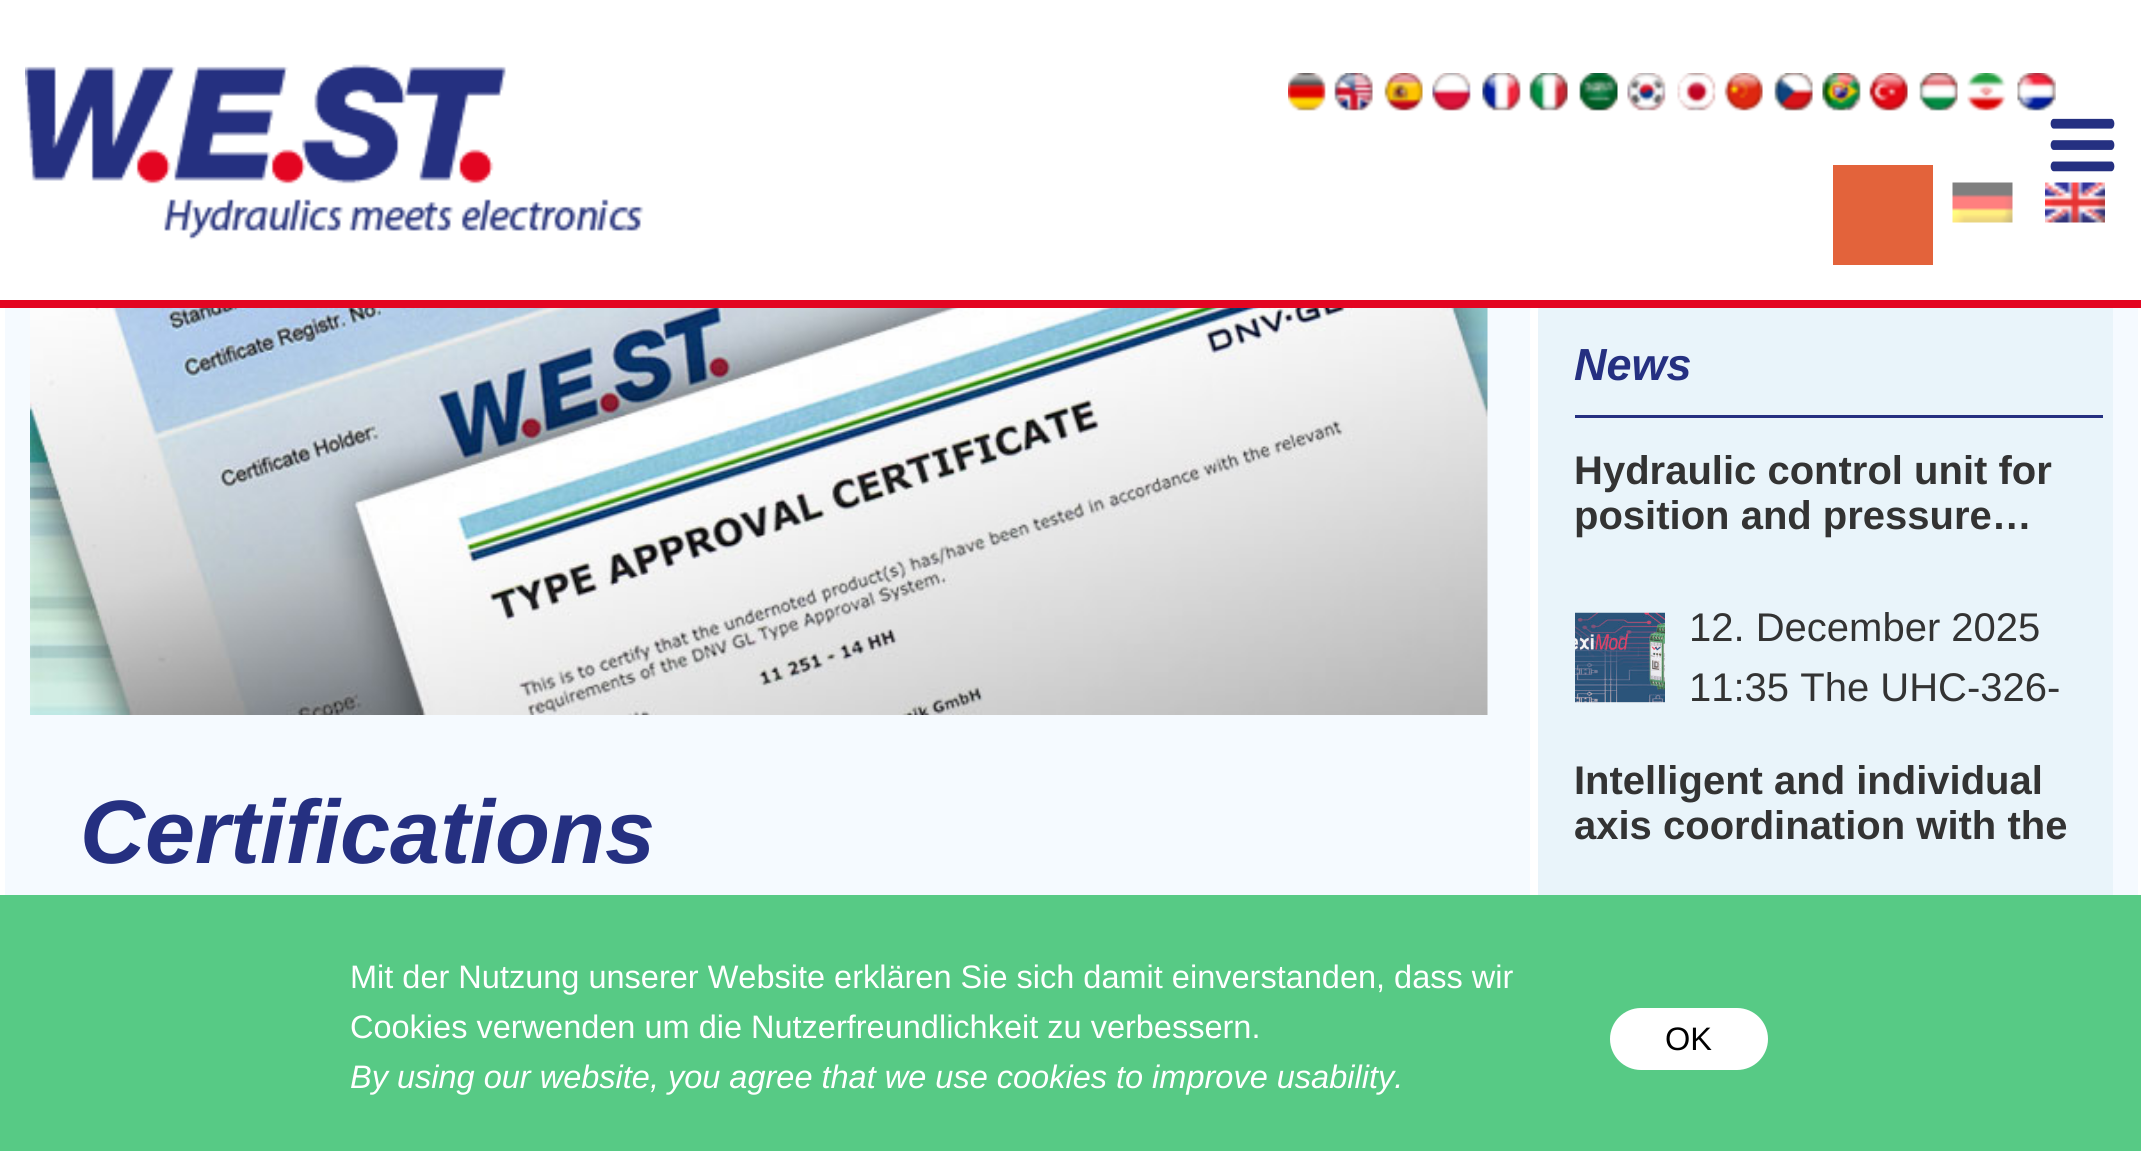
#include <cairo/cairo.h>
#include <math.h>
#include <stddef.h>

typedef struct { double x, y, w, h; unsigned color; } box_t;
static cairo_t *cr;

static void rgb(unsigned color)
{
	cairo_set_source_rgb(cr, (color >> 16) / 255.0, (color >> 8 & 255) / 255.0, (color & 255) / 255.0);
}

static void rrect(double x, double y, double w, double h, double r)
{
	cairo_new_sub_path(cr);
	cairo_arc(cr, x + w - r, y + h - r, r, 0, M_PI / 2);
	cairo_arc(cr, x + r, y + h - r, r, M_PI / 2, M_PI);
	cairo_arc(cr, x + r, y + r, r, M_PI, 1.5 * M_PI);
	cairo_arc(cr, x + w - r, y + r, r, 1.5 * M_PI, 2 * M_PI);
	cairo_close_path(cr);
}

static void image(const char *path, double x, double y, double w, double h)
{
	cairo_surface_t *image = cairo_image_surface_create_from_png(path);
	cairo_save(cr);
	cairo_set_source_surface(cr, image, x, y);
	cairo_rectangle(cr, x, y, w, h);
	cairo_fill(cr);
	cairo_restore(cr);
	cairo_surface_destroy(image);
}

int main(void) {
	cairo_surface_t *surface = cairo_image_surface_create(CAIRO_FORMAT_RGB24, 2141, 1151);
	cr = cairo_create(surface);
	cairo_font_options_t *options = cairo_font_options_create();
	cairo_font_options_set_hint_metrics(options, CAIRO_HINT_METRICS_OFF);
	cairo_font_options_set_hint_style(options, CAIRO_HINT_STYLE_NONE);
	cairo_set_font_options(cr, options);
	cairo_set_miter_limit(cr, 4);
	rgb(0xf5faff);
	cairo_paint(cr);
	rgb(0xe9f4fa);
	cairo_new_path(cr);
	cairo_move_to(cr, 1568, 275);
	cairo_line_to(cr, 2113, 275);
	cairo_line_to(cr, 2113, 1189);
	cairo_line_to(cr, 1568, 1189);
	cairo_curve_to(cr, 1547, 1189, 1530, 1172, 1530, 1151);
	cairo_line_to(cr, 1530, 313);
	cairo_curve_to(cr, 1530, 292, 1547, 275, 1568, 275);
	cairo_close_path(cr);
	cairo_fill(cr);
	rgb(0xffffff);
	cairo_set_fill_rule(cr, CAIRO_FILL_RULE_EVEN_ODD);
	cairo_new_path(cr);
	cairo_move_to(cr, 1568, 275);
	cairo_line_to(cr, 2112, 275);
	cairo_line_to(cr, 2112, 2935);
	cairo_line_to(cr, 1568, 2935);
	cairo_curve_to(cr, 1547, 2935, 1530, 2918, 1530, 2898);
	cairo_line_to(cr, 1530, 312);
	cairo_curve_to(cr, 1530, 292, 1547, 275, 1568, 275);
	cairo_close_path(cr);
	cairo_move_to(cr, 1568, 282);
	cairo_line_to(cr, 2112, 282);
	cairo_line_to(cr, 2112, 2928);
	cairo_line_to(cr, 1568, 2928);
	cairo_curve_to(cr, 1551, 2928, 1538, 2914, 1538, 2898);
	cairo_line_to(cr, 1538, 312);
	cairo_curve_to(cr, 1538, 296, 1551, 282, 1568, 282);
	cairo_close_path(cr);
	cairo_fill(cr);
	cairo_rectangle(cr, 0, 0, 2141, 300);
	cairo_fill(cr);
	image("img/1.png", 2050, 118, 65, 54);
	rgb(0xe30521);
	cairo_rectangle(cr, 0, 300, 2141, 8);
	cairo_fill(cr);
	image("img/2.png", 25, 64, 619, 176);
	image("img/3.png", 1288, 73, 38, 38);
	image("img/4.png", 1334, 73, 39, 38);
	image("img/5.png", 1384, 73, 39, 38);
	image("img/6.png", 1432, 73, 39, 38);
	image("img/7.png", 1482, 73, 39, 38);
	image("img/8.png", 1529, 73, 39, 38);
	image("img/9.png", 1579, 73, 39, 38);
	image("img/10.png", 1627, 73, 39, 38);
	image("img/11.png", 1677, 73, 39, 38);
	image("img/12.png", 1724, 73, 39, 38);
	image("img/13.png", 1774, 73, 39, 38);
	image("img/14.png", 1822, 73, 39, 38);
	image("img/15.png", 1869, 73, 39, 38);
	image("img/16.png", 1919, 73, 39, 38);
	image("img/17.png", 1967, 73, 39, 38);
	image("img/18.png", 2017, 73, 39, 38);
	image("img/19.png", 1952, 182, 61, 41);
	image("img/20.png", 2045, 182, 60, 41);
	{
		static const box_t items[] = {
			{1833, 165, 100, 100, 0xe3633b},
			{2138, 308, 3, 587, 0xffffff},
			{0, 308, 5, 587, 0xffffff},
		};
		for (size_t i = 0; i < sizeof items / sizeof *items; i++) {
			rgb(items[i].color);
			cairo_rectangle(cr, items[i].x, items[i].y, items[i].w, items[i].h);
			cairo_fill(cr);
		}
	}
	image("img/21.png", 30, 308, 1458, 407);
	rgb(0x253081);
	cairo_rectangle(cr, 1575, 415, 528, 3);
	cairo_fill(cr);
	rgb(0xffffff);
	cairo_rectangle(cr, 1575, 702, 90, 1);
	cairo_fill(cr);
	image("img/22.png", 1575, 612, 90, 91);
	rgb(0x57ca85);
	cairo_rectangle(cr, 0, 895, 2141, 256);
	cairo_fill(cr);
	rgb(0xffffff);
	rrect(1612.5, 1010.5, 153, 57, 28.5);
	cairo_fill_preserve(cr);
	cairo_set_line_width(cr, 5);
	cairo_stroke(cr);
	cairo_select_font_face(cr, "Liberation Sans", CAIRO_FONT_SLANT_ITALIC, CAIRO_FONT_WEIGHT_BOLD);
	cairo_set_font_size(cr, 90);
	rgb(0x253081);
	cairo_move_to(cr, 80, 863);
	cairo_show_text(cr, "Certifications");
	cairo_set_font_size(cr, 45);
	cairo_move_to(cr, 1574, 380);
	cairo_show_text(cr, "News");
	cairo_select_font_face(cr, "Liberation Sans", CAIRO_FONT_SLANT_NORMAL, CAIRO_FONT_WEIGHT_BOLD);
	cairo_set_font_size(cr, 40);
	rgb(0x333333);
	cairo_move_to(cr, 1574, 484);
	cairo_show_text(cr, "Hydraulic control unit for");
	cairo_move_to(cr, 1574, 529);
	cairo_show_text(cr, "position and pressure…");
	cairo_select_font_face(cr, "Liberation Sans", CAIRO_FONT_SLANT_NORMAL, CAIRO_FONT_WEIGHT_NORMAL);
	cairo_move_to(cr, 1689, 641);
	cairo_show_text(cr, "12. December 2025");
	cairo_move_to(cr, 1689, 701);
	cairo_show_text(cr, "11:35 The UHC-326-");
	cairo_select_font_face(cr, "Liberation Sans", CAIRO_FONT_SLANT_NORMAL, CAIRO_FONT_WEIGHT_BOLD);
	cairo_move_to(cr, 1574, 794);
	cairo_show_text(cr, "Intelligent and individual");
	cairo_move_to(cr, 1574, 839);
	cairo_show_text(cr, "axis coordination with the");
	cairo_select_font_face(cr, "Liberation Sans", CAIRO_FONT_SLANT_NORMAL, CAIRO_FONT_WEIGHT_NORMAL);
	cairo_set_font_size(cr, 32.5);
	rgb(0xffffff);
	cairo_move_to(cr, 350, 988);
	cairo_show_text(cr, "Mit der Nutzung unserer Website erklären Sie sich damit einverstanden, dass wir");
	cairo_move_to(cr, 350, 1038);
	cairo_show_text(cr, "Cookies verwenden um die Nutzerfreundlichkeit zu verbessern.");
	cairo_select_font_face(cr, "Liberation Sans", CAIRO_FONT_SLANT_ITALIC, CAIRO_FONT_WEIGHT_NORMAL);
	cairo_move_to(cr, 350, 1088);
	cairo_show_text(cr, "By using our website, you agree that we use cookies to improve usability.");
	cairo_select_font_face(cr, "Liberation Sans", CAIRO_FONT_SLANT_NORMAL, CAIRO_FONT_WEIGHT_NORMAL);
	rgb(0x000000);
	cairo_move_to(cr, 1665, 1050);
	cairo_show_text(cr, "OK");
	cairo_surface_write_to_png(surface, "page.png");
	cairo_font_options_destroy(options);
	cairo_destroy(cr);
	cairo_surface_destroy(surface);
	return 0;
}
